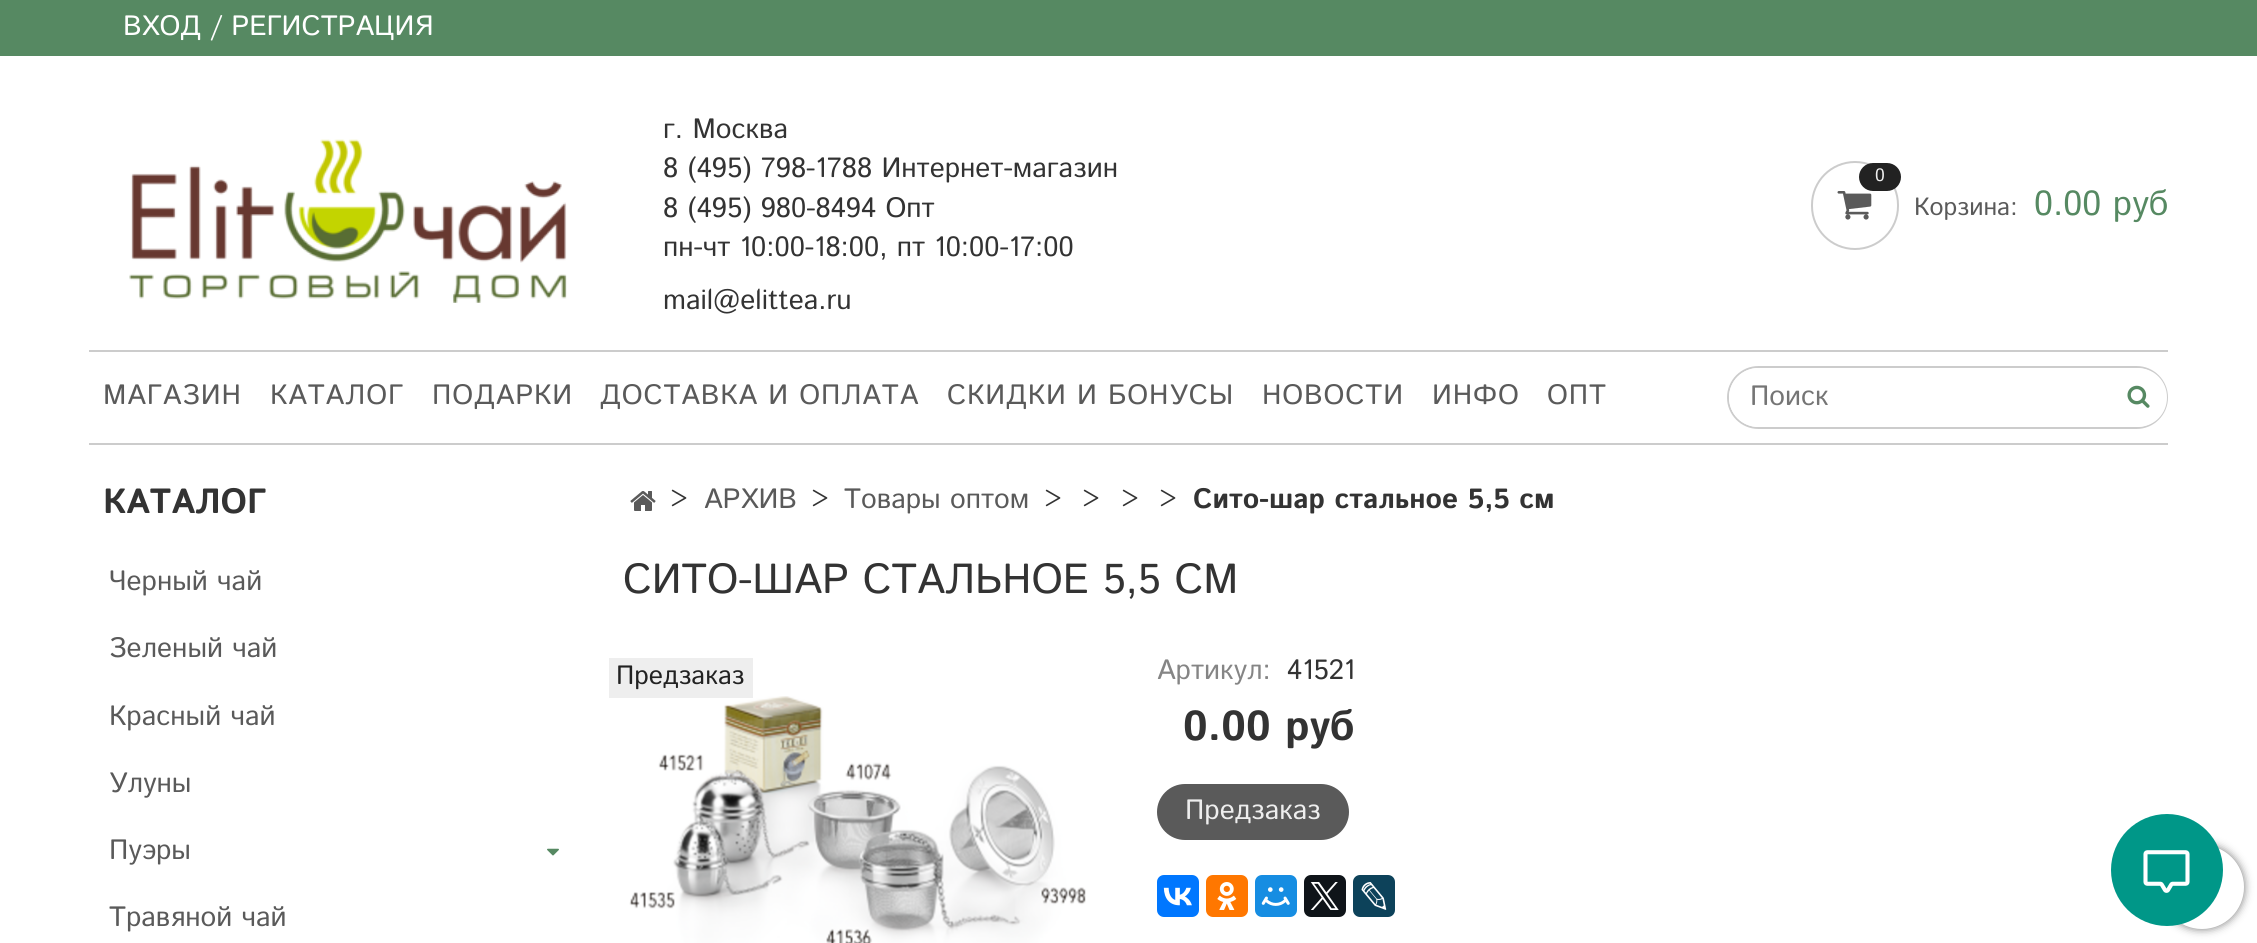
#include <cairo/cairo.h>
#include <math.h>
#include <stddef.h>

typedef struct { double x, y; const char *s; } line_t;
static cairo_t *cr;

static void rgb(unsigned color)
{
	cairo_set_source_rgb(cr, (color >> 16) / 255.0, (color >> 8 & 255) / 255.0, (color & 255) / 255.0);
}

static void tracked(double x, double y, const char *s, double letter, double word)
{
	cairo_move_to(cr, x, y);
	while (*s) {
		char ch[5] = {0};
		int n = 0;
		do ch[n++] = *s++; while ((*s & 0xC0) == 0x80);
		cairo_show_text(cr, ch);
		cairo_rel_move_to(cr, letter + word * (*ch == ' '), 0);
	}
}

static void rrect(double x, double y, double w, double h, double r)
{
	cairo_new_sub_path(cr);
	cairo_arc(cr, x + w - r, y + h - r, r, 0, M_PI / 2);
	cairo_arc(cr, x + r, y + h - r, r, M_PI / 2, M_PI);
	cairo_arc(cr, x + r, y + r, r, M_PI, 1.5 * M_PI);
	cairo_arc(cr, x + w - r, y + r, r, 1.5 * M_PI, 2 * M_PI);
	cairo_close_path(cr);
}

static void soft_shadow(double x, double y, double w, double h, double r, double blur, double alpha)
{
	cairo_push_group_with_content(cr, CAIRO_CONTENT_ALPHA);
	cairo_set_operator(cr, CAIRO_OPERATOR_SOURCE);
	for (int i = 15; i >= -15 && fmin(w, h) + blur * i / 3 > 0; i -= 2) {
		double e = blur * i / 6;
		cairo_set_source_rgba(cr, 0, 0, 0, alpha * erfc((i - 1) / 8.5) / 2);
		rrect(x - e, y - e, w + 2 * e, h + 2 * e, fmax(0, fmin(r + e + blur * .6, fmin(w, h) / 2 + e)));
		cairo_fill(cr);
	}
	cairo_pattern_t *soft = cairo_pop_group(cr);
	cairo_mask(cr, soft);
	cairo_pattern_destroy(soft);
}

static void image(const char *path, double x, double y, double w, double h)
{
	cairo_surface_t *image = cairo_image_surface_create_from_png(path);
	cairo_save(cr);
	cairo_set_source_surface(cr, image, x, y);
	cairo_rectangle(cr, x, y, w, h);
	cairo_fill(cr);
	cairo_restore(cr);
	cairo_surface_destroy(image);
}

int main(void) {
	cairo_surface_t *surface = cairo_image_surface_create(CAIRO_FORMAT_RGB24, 2257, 943);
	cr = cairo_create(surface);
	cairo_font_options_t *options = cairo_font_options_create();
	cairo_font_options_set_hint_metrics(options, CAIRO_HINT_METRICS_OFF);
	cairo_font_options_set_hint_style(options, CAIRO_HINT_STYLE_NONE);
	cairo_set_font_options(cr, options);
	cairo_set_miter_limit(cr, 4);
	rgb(0xffffff);
	cairo_paint(cr);
	rgb(0x568962);
	cairo_rectangle(cr, 0, 0, 2257, 56);
	cairo_fill(cr);
	image("img/1.png", 129, 139, 438, 164);
	rrect(1812, 162, 86, 87, 43);
	rgb(0xcccccc);
	cairo_stroke(cr);
	rgb(0x222222);
	rrect(1859, 163, 42, 28, 14);
	cairo_fill(cr);
	image("img/2.png", 1837, 191, 35, 29);
	rgb(0xcccccc);
	cairo_rectangle(cr, 89, 350, 2079, 2);
	cairo_fill(cr);
	cairo_rectangle(cr, 89, 443, 2079, 2);
	cairo_fill(cr);
	rrect(1728, 367, 439, 61, 30.5);
	cairo_stroke(cr);
	rgb(0xffffff);
	cairo_new_path(cr);
	cairo_move_to(cr, 1758.5, 368);
	cairo_line_to(cr, 2111, 368);
	cairo_line_to(cr, 2111, 427);
	cairo_line_to(cr, 1758.5, 427);
	cairo_curve_to(cr, 1742, 427, 1729, 414, 1729, 397.5);
	cairo_curve_to(cr, 1729, 381, 1742, 368, 1758.5, 368);
	cairo_close_path(cr);
	cairo_fill(cr);
	cairo_new_path(cr);
	cairo_move_to(cr, 2111, 368);
	cairo_line_to(cr, 2137.5, 368);
	cairo_curve_to(cr, 2154, 368, 2167, 381, 2167, 397.5);
	cairo_curve_to(cr, 2167, 414, 2154, 427, 2137.5, 427);
	cairo_line_to(cr, 2111, 427);
	cairo_close_path(cr);
	cairo_fill(cr);
	image("img/3.png", 2127, 385, 23, 23);
	image("img/4.png", 547, 848, 12, 8);
	image("img/5.png", 630, 491, 26, 20);
	image("img/6.png", 629, 696, 457, 247);
	rgb(0xeeeeee);
	cairo_rectangle(cr, 609, 658, 144, 40);
	cairo_fill(cr);
	rgb(0x5a5a5a);
	rrect(1157, 784, 192, 56, 28);
	cairo_fill(cr);
	rgb(0x0077ff);
	rrect(1157, 875, 42, 42, 7);
	cairo_fill(cr);
	image("img/7.png", 1163, 887, 29, 19);
	rgb(0xff7700);
	rrect(1206, 875, 42, 42, 7);
	cairo_fill(cr);
	image("img/8.png", 1217, 882, 20, 28);
	rgb(0x168de2);
	rrect(1255, 875, 42, 42, 7);
	cairo_fill(cr);
	image("img/9.png", 1261, 887, 29, 19);
	rgb(0x0f1419);
	rrect(1304, 875, 42, 42, 7);
	cairo_fill(cr);
	image("img/10.png", 1310, 882, 29, 28);
	rgb(0x0d425a);
	rrect(1353, 875, 42, 42, 7);
	cairo_fill(cr);
	image("img/11.png", 1361, 882, 26, 28);
	rgb(0x777777);
	soft_shadow(2160, 845, 84, 84, 42, 4.5, 1);
	rgb(0xffffff);
	cairo_arc(cr, 2202, 887, 42, 0, 2 * M_PI);
	cairo_fill(cr);
	rgb(0x009788);
	cairo_arc(cr, 2167, 870, 56, 0, 2 * M_PI);
	cairo_fill(cr);
	image("img/12.png", 2143, 850, 47, 43);
	cairo_select_font_face(cr, "Istok Web", CAIRO_FONT_SLANT_NORMAL, CAIRO_FONT_WEIGHT_NORMAL);
	cairo_set_font_size(cr, 28);
	rgb(0xffffff);
	cairo_move_to(cr, 123, 35);
	cairo_show_text(cr, "ВХОД / РЕГИСТРАЦИЯ");
	rgb(0x333333);
	{
		static const line_t items[] = {
			{663, 138, "г. Москва"},
			{663, 177, "8 (495) 798-1788 Интернет-магазин"},
			{663, 217, "8 (495) 980-8494 Опт"},
			{663, 256, "пн-чт 10:00-18:00, пт 10:00-17:00"},
			{663, 309, "mail@elittea.ru"},
		};
		for (size_t i = 0; i < sizeof items / sizeof *items; i++) {
			cairo_move_to(cr, items[i].x, items[i].y);
			cairo_show_text(cr, items[i].s);
		}
	}
	cairo_set_font_size(cr, 18);
	rgb(0xeeeeee);
	cairo_move_to(cr, 1875, 181);
	cairo_show_text(cr, "0");
	cairo_set_font_size(cr, 25);
	rgb(0x5a5a5a);
	cairo_move_to(cr, 1914, 215);
	cairo_show_text(cr, "Корзина:");
	cairo_set_font_size(cr, 35);
	rgb(0x568962);
	cairo_move_to(cr, 2034, 215);
	cairo_show_text(cr, "0.00 руб");
	cairo_set_font_size(cr, 28);
	rgb(0x5a5a5a);
	{
		static const line_t items[] = {
			{103, 404, "МАГАЗИН"},
			{270, 404, "КАТАЛОГ"},
			{432, 404, "ПОДАРКИ"},
			{600, 404, "ДОСТАВКА И ОПЛАТА"},
			{947, 404, "СКИДКИ И БОНУСЫ"},
			{1262, 404, "НОВОСТИ"},
			{1432, 404, "ИНФО"},
			{1547, 404, "ОПТ"},
		};
		for (size_t i = 0; i < sizeof items / sizeof *items; i++) {
			tracked(items[i].x, items[i].y, items[i].s, 0.9, 0);
		}
	}
	rgb(0x757575);
	cairo_move_to(cr, 1750, 405);
	cairo_show_text(cr, "Поиск");
	cairo_select_font_face(cr, "Istok Web", CAIRO_FONT_SLANT_NORMAL, CAIRO_FONT_WEIGHT_BOLD);
	cairo_set_font_size(cr, 35);
	rgb(0x333333);
	cairo_move_to(cr, 103, 513);
	cairo_show_text(cr, "КАТАЛОГ");
	cairo_select_font_face(cr, "Istok Web", CAIRO_FONT_SLANT_NORMAL, CAIRO_FONT_WEIGHT_NORMAL);
	cairo_set_font_size(cr, 28);
	rgb(0x5a5a5a);
	{
		static const line_t items[] = {
			{109, 590, "Черный чай"},
			{109, 657, "Зеленый чай"},
			{109, 725, "Красный чай"},
			{109, 792, "Улуны"},
			{109, 859, "Пуэры"},
			{109, 926, "Травяной чай"},
		};
		for (size_t i = 0; i < sizeof items / sizeof *items; i++) {
			cairo_move_to(cr, items[i].x, items[i].y);
			cairo_show_text(cr, items[i].s);
		}
	}
	rgb(0x333333);
	cairo_move_to(cr, 670, 508);
	cairo_show_text(cr, ">");
	rgb(0x5a5a5a);
	cairo_move_to(cr, 704, 508);
	cairo_show_text(cr, "АРХИВ");
	rgb(0x333333);
	cairo_move_to(cr, 811, 508);
	cairo_show_text(cr, ">");
	rgb(0x5a5a5a);
	cairo_move_to(cr, 844, 508);
	cairo_show_text(cr, "Товары оптом");
	rgb(0x333333);
	{
		static const line_t items[] = {
			{1044, 508, ">"},
			{1082, 508, ">"},
			{1121, 508, ">"},
			{1159, 508, ">"},
		};
		for (size_t i = 0; i < sizeof items / sizeof *items; i++) {
			cairo_move_to(cr, items[i].x, items[i].y);
			cairo_show_text(cr, items[i].s);
		}
	}
	cairo_select_font_face(cr, "Istok Web", CAIRO_FONT_SLANT_NORMAL, CAIRO_FONT_WEIGHT_BOLD);
	cairo_move_to(cr, 1193, 508);
	cairo_show_text(cr, "Сито-шар стальное 5,5 см");
	cairo_select_font_face(cr, "Istok Web", CAIRO_FONT_SLANT_NORMAL, CAIRO_FONT_WEIGHT_NORMAL);
	cairo_set_font_size(cr, 42);
	cairo_move_to(cr, 623, 593);
	cairo_show_text(cr, "СИТО-ШАР СТАЛЬНОЕ 5,5 СМ");
	cairo_set_font_size(cr, 26.5);
	rgb(0x222222);
	cairo_move_to(cr, 616, 684);
	cairo_show_text(cr, "Предзаказ");
	cairo_set_font_size(cr, 28);
	rgb(0x858585);
	cairo_move_to(cr, 1157, 679);
	cairo_show_text(cr, "Артикул:");
	rgb(0x333333);
	cairo_move_to(cr, 1287, 679);
	cairo_show_text(cr, "41521");
	cairo_select_font_face(cr, "Istok Web", CAIRO_FONT_SLANT_NORMAL, CAIRO_FONT_WEIGHT_BOLD);
	cairo_set_font_size(cr, 42);
	cairo_move_to(cr, 1183, 740);
	cairo_show_text(cr, "0.00 руб");
	cairo_select_font_face(cr, "Istok Web", CAIRO_FONT_SLANT_NORMAL, CAIRO_FONT_WEIGHT_NORMAL);
	cairo_set_font_size(cr, 28);
	rgb(0xeeeeee);
	cairo_move_to(cr, 1185, 819);
	cairo_show_text(cr, "Предзаказ");
	cairo_surface_write_to_png(surface, "page.png");
	cairo_font_options_destroy(options);
	cairo_destroy(cr);
	cairo_surface_destroy(surface);
	return 0;
}
